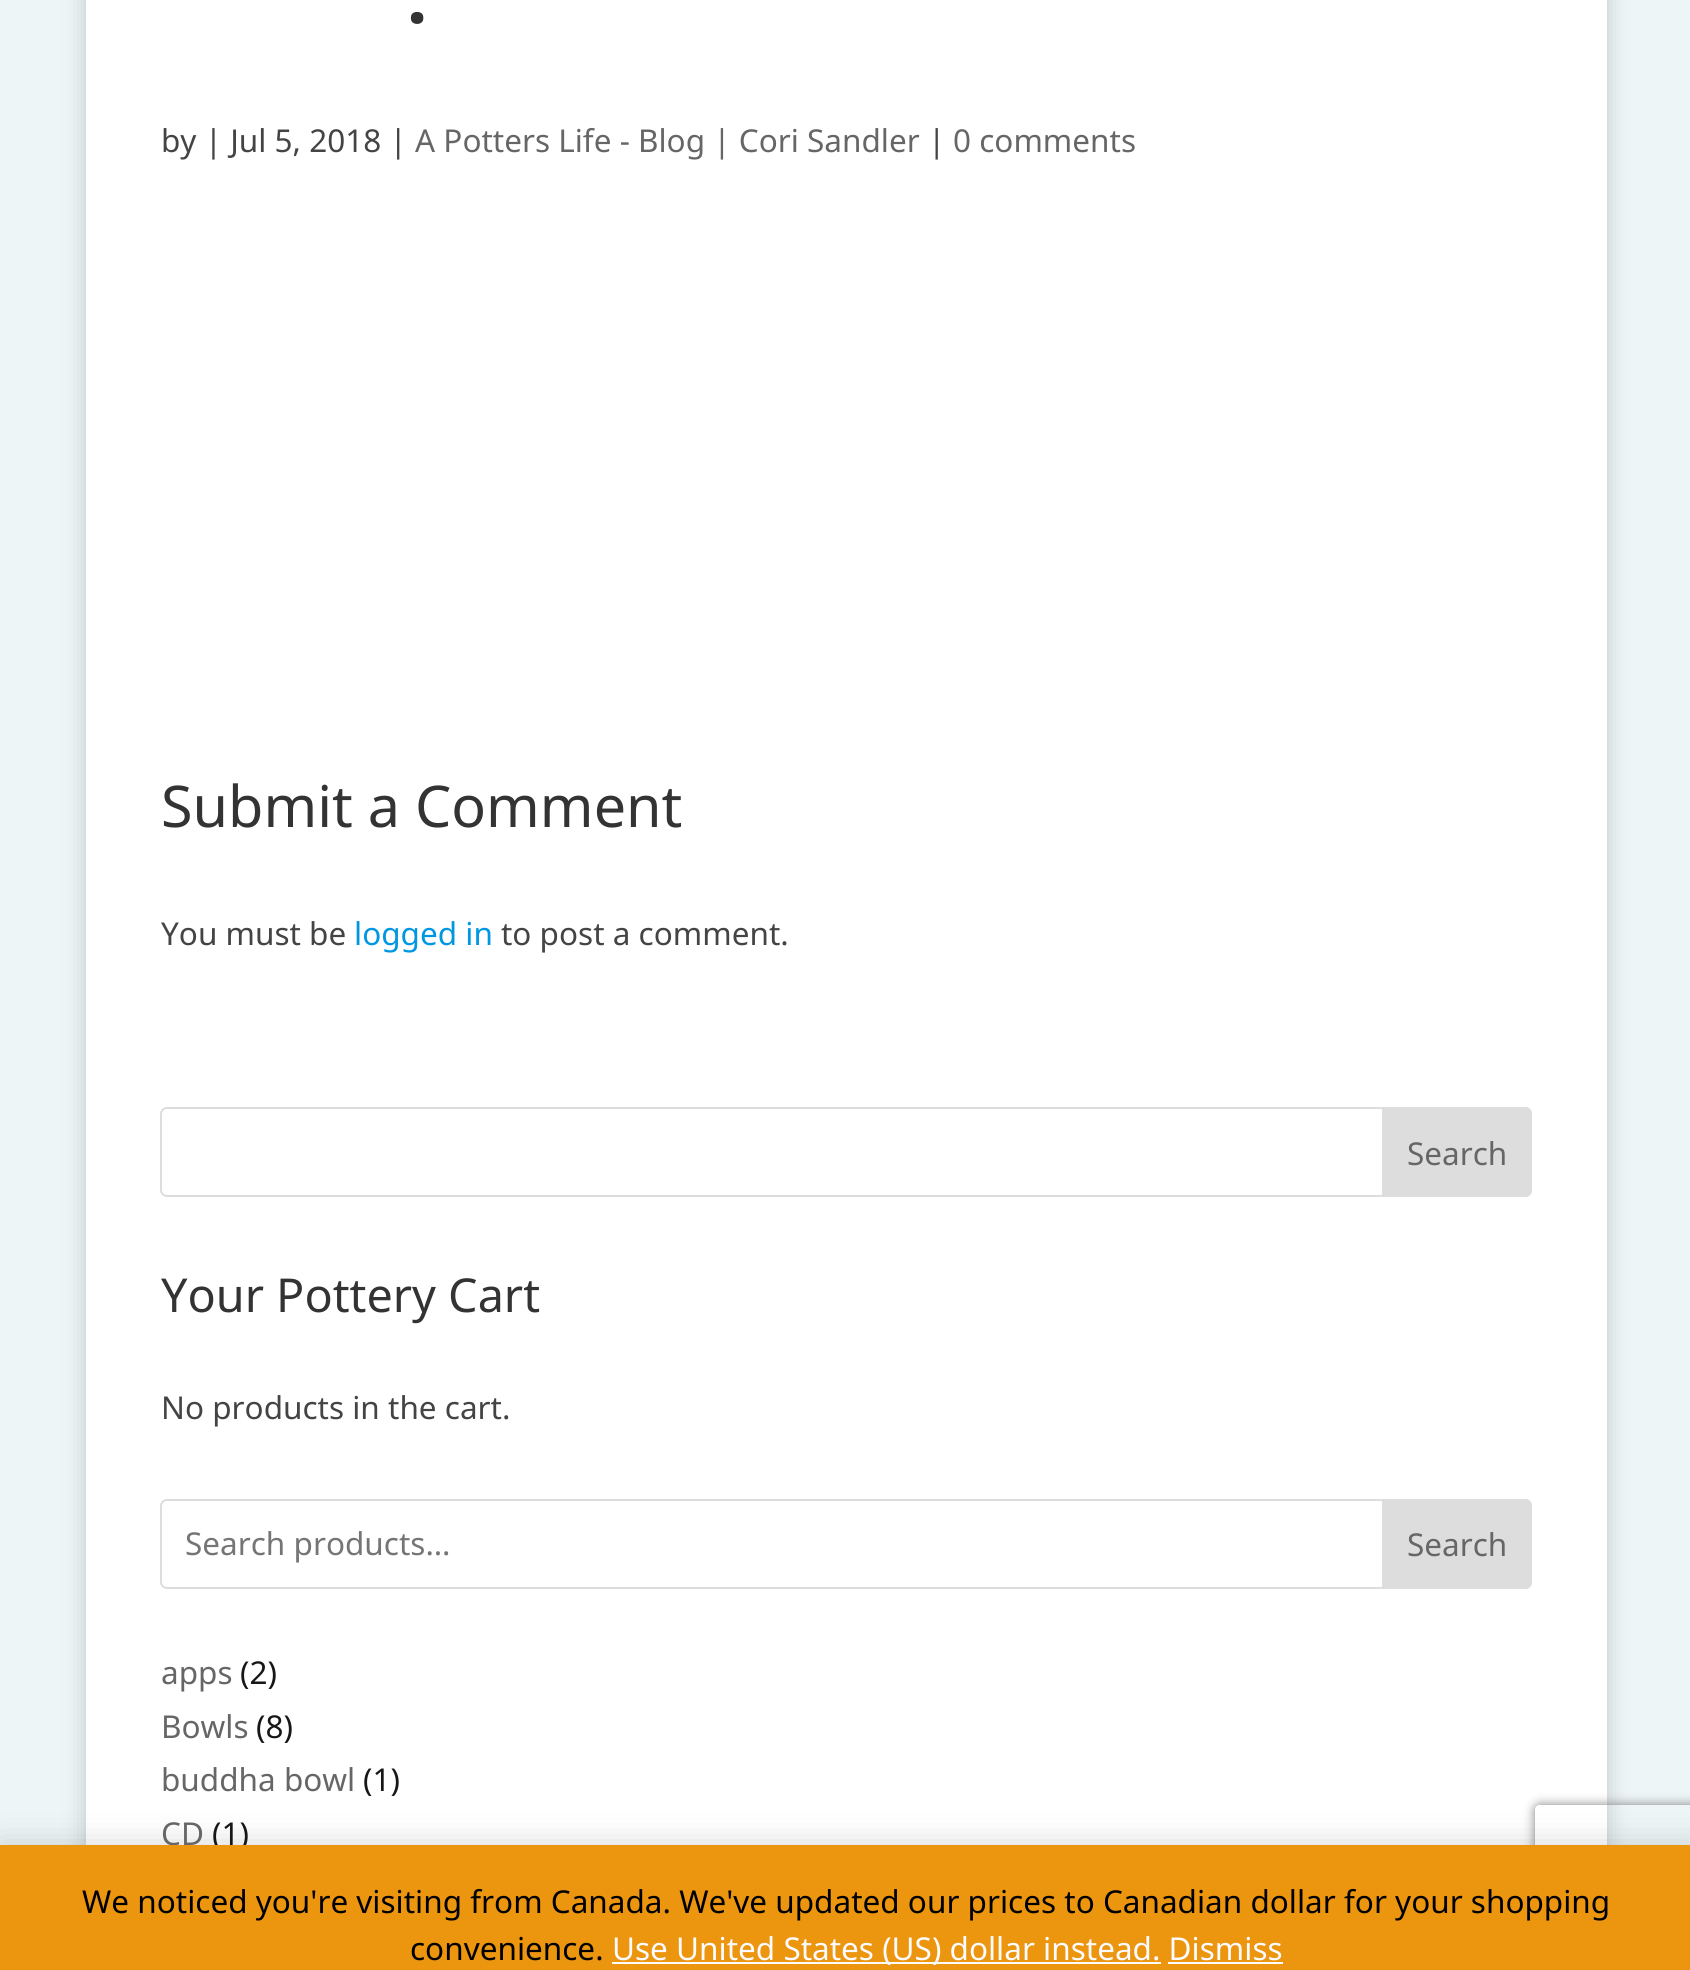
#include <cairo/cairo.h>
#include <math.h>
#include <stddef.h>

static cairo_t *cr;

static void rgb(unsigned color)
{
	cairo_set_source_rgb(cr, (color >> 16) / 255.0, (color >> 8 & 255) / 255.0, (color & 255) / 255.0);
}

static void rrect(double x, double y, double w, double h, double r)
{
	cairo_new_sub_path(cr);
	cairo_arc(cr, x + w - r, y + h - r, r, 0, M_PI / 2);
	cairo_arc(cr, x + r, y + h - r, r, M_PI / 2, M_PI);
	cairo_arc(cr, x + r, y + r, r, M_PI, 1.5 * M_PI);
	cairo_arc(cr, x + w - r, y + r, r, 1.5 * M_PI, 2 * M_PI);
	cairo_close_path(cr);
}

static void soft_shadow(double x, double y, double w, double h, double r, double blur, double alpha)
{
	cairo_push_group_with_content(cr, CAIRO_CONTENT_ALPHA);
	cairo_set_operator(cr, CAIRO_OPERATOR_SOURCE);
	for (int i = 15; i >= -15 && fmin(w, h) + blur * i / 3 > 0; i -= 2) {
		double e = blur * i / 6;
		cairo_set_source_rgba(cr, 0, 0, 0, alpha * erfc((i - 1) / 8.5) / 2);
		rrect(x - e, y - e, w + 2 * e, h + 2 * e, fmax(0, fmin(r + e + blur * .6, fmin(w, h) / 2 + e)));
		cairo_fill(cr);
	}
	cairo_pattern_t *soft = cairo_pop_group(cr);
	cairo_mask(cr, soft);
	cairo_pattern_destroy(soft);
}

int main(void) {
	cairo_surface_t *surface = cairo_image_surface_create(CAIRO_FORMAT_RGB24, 1690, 1970);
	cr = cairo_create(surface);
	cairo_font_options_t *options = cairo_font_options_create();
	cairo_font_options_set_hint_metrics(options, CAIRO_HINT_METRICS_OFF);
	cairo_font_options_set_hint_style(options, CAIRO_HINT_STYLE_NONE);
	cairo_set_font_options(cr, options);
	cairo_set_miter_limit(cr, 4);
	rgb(0xedf5f7);
	cairo_paint(cr);
	rgb(0x000000);
	soft_shadow(86, -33, 1521, 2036, 0, 11, 0.2);
	rgb(0xffffff);
	cairo_rectangle(cr, 86, 0, 1521, 1845);
	cairo_fill(cr);
	rrect(161, 1108, 1370, 88, 6);
	rgb(0xdddddd);
	cairo_stroke(cr);
	cairo_new_path(cr);
	cairo_move_to(cr, 1383, 1108);
	cairo_line_to(cr, 1525, 1108);
	cairo_curve_to(cr, 1528.5, 1108, 1531, 1110.5, 1531, 1114);
	cairo_line_to(cr, 1531, 1190);
	cairo_curve_to(cr, 1531, 1193.5, 1528.5, 1196, 1525, 1196);
	cairo_line_to(cr, 1383, 1196);
	cairo_close_path(cr);
	cairo_fill_preserve(cr);
	cairo_stroke(cr);
	rrect(161, 1500, 1370, 88, 6);
	cairo_stroke(cr);
	cairo_new_path(cr);
	cairo_move_to(cr, 1383, 1500);
	cairo_line_to(cr, 1525, 1500);
	cairo_curve_to(cr, 1528.5, 1500, 1531, 1502.5, 1531, 1506);
	cairo_line_to(cr, 1531, 1582);
	cairo_curve_to(cr, 1531, 1585.5, 1528.5, 1588, 1525, 1588);
	cairo_line_to(cr, 1383, 1588);
	cairo_close_path(cr);
	cairo_fill_preserve(cr);
	cairo_stroke(cr);
	cairo_save(cr);
	cairo_set_fill_rule(cr, CAIRO_FILL_RULE_EVEN_ODD);
	cairo_new_path(cr);
	cairo_move_to(cr, 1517, 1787);
	cairo_line_to(cr, 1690, 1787);
	cairo_line_to(cr, 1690, 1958);
	cairo_line_to(cr, 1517, 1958);
	cairo_close_path(cr);
	cairo_move_to(cr, 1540, 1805);
	cairo_line_to(cr, 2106, 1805);
	cairo_curve_to(cr, 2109, 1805, 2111, 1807, 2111, 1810);
	cairo_line_to(cr, 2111, 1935);
	cairo_curve_to(cr, 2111, 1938, 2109, 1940, 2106, 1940);
	cairo_line_to(cr, 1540, 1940);
	cairo_curve_to(cr, 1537, 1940, 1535, 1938, 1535, 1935);
	cairo_line_to(cr, 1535, 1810);
	cairo_curve_to(cr, 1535, 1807, 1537, 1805, 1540, 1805);
	cairo_close_path(cr);
	cairo_clip(cr);
	rgb(0x808080);
	soft_shadow(1535, 1805, 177, 135, 5, 5.5, 1);
	cairo_restore(cr);
	rgb(0x000000);
	soft_shadow(0, 1847, 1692, 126, 0, 16, 0.2);
	cairo_select_font_face(cr, "Noto Sans", CAIRO_FONT_SLANT_NORMAL, CAIRO_FONT_WEIGHT_BOLD);
	cairo_set_font_size(cr, 72);
	rgb(0x333333);
	cairo_move_to(cr, 407, 23);
	cairo_show_text(cr, ".");
	cairo_select_font_face(cr, "Noto Sans", CAIRO_FONT_SLANT_NORMAL, CAIRO_FONT_WEIGHT_NORMAL);
	cairo_set_font_size(cr, 31.5);
	rgb(0x444444);
	cairo_move_to(cr, 161, 152);
	cairo_show_text(cr, "by | Jul 5, 2018 |");
	rgb(0x666666);
	cairo_move_to(cr, 415, 152);
	cairo_show_text(cr, "A Potters Life - Blog | Cori Sandler");
	rgb(0x444444);
	cairo_move_to(cr, 928, 152);
	cairo_show_text(cr, "|");
	rgb(0x666666);
	cairo_move_to(cr, 953, 152);
	cairo_show_text(cr, "0 comments");
	cairo_set_font_size(cr, 57.5);
	rgb(0x333333);
	cairo_move_to(cr, 161, 827);
	cairo_show_text(cr, "Submit a Comment");
	cairo_set_font_size(cr, 31.5);
	rgb(0x444444);
	cairo_move_to(cr, 161, 945);
	cairo_show_text(cr, "You must be");
	rgb(0x0097e2);
	cairo_move_to(cr, 354, 945);
	cairo_show_text(cr, "logged in");
	rgb(0x444444);
	cairo_move_to(cr, 501, 945);
	cairo_show_text(cr, "to post a comment.");
	rgb(0x666666);
	cairo_move_to(cr, 1407, 1165);
	cairo_show_text(cr, "Search");
	cairo_set_font_size(cr, 46.75);
	rgb(0x333333);
	cairo_move_to(cr, 161, 1312);
	cairo_show_text(cr, "Your Pottery Cart");
	cairo_set_font_size(cr, 31.5);
	rgb(0x444444);
	cairo_move_to(cr, 161, 1419);
	cairo_show_text(cr, "No products in the cart.");
	rgb(0x757575);
	cairo_move_to(cr, 185, 1555);
	cairo_show_text(cr, "Search products…");
	rgb(0x666666);
	cairo_move_to(cr, 1407, 1556);
	cairo_show_text(cr, "Search");
	cairo_move_to(cr, 161, 1684);
	cairo_show_text(cr, "apps");
	rgb(0x171717);
	cairo_move_to(cr, 240, 1684);
	cairo_show_text(cr, "(2)");
	rgb(0x666666);
	cairo_move_to(cr, 161, 1738);
	cairo_show_text(cr, "Bowls");
	rgb(0x171717);
	cairo_move_to(cr, 256, 1738);
	cairo_show_text(cr, "(8)");
	rgb(0x666666);
	cairo_move_to(cr, 161, 1791);
	cairo_show_text(cr, "buddha bowl");
	rgb(0x171717);
	cairo_move_to(cr, 363, 1791);
	cairo_show_text(cr, "(1)");
	rgb(0x666666);
	cairo_move_to(cr, 161, 1845);
	cairo_show_text(cr, "CD");
	rgb(0x171717);
	cairo_move_to(cr, 212, 1845);
	cairo_show_text(cr, "(1)");
	rgb(0xec950e);
	cairo_rectangle(cr, 0, 1845, 1690, 125);
	cairo_fill(cr);
	rgb(0x000000);
	cairo_move_to(cr, 82, 1913);
	cairo_show_text(cr, "We noticed you're visiting from Canada. We've updated our prices to Canadian dollar for your shopping");
	cairo_move_to(cr, 410, 1960);
	cairo_show_text(cr, "convenience.");
	rgb(0xfcfbfe);
	cairo_rectangle(cr, 612, 1962, 549, 2);
	cairo_fill(cr);
	cairo_move_to(cr, 612, 1960);
	cairo_show_text(cr, "Use United States (US) dollar instead. Dismiss");
	cairo_rectangle(cr, 1168, 1962, 115, 2);
	cairo_fill(cr);
	cairo_surface_write_to_png(surface, "page.png");
	cairo_font_options_destroy(options);
	cairo_destroy(cr);
	cairo_surface_destroy(surface);
	return 0;
}
